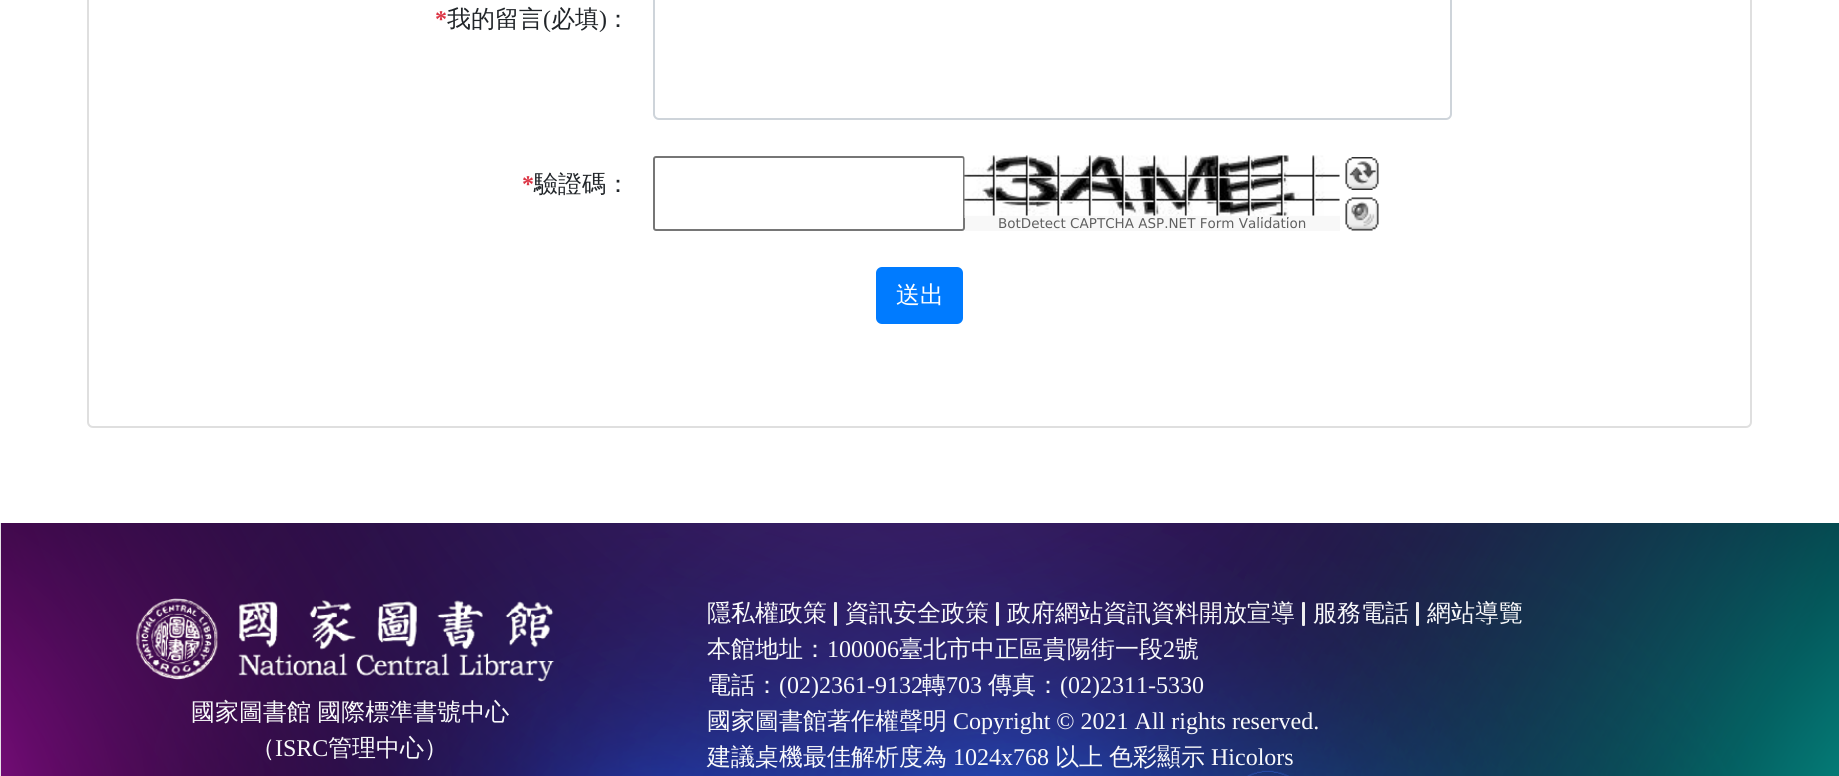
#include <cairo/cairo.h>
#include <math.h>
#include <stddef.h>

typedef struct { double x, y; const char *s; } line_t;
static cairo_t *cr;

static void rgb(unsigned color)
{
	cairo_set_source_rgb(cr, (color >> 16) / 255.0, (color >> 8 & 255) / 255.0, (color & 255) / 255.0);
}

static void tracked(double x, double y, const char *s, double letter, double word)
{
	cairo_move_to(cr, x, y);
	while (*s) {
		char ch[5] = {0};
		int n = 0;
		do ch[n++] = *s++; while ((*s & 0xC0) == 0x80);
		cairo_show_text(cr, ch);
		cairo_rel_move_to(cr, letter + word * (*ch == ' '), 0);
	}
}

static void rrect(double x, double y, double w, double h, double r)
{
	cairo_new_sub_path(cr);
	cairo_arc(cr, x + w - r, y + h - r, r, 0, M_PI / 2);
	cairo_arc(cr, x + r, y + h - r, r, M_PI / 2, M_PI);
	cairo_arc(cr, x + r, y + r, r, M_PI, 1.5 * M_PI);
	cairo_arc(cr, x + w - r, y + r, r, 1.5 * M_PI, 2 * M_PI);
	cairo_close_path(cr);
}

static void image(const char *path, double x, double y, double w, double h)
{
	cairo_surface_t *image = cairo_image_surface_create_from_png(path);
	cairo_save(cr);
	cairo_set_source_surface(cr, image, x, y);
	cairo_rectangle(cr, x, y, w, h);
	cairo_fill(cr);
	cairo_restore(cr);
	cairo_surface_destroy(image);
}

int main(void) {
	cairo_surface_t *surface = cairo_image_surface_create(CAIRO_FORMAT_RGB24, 1839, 776);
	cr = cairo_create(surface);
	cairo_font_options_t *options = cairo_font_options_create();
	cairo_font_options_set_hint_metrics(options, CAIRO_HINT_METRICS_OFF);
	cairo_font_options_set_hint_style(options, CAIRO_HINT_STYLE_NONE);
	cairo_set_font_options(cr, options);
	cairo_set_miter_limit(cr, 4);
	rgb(0xffffff);
	cairo_paint(cr);
	rrect(88, -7, 1663, 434, 5);
	rgb(0xdfdfdf);
	cairo_stroke(cr);
	rrect(654, -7, 797, 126, 5);
	rgb(0xced4da);
	cairo_stroke(cr);
	rrect(654, 157, 310, 73, 2);
	rgb(0x767676);
	cairo_stroke(cr);
	rgb(0xf8f8f8);
	cairo_rectangle(cr, 965, 216, 375, 15);
	cairo_fill(cr);
	image("img/1.png", 964, 155, 376, 63);
	image("img/2.png", 1345, 157, 34, 33);
	image("img/3.png", 1345, 197, 34, 34);
	rgb(0x007bff);
	rrect(877, 268, 85, 55, 5);
	cairo_fill_preserve(cr);
	cairo_stroke(cr);
	image("img/4.png", 0, 523, 1839, 253);
	image("img/5.png", 136, 598, 419, 84);
	rgb(0xeeeeee);
	rrect(834, 602, 3, 24, 1);
	cairo_fill(cr);
	rrect(996, 602, 3, 24, 1);
	cairo_fill(cr);
	rrect(1302, 602, 3, 24, 1);
	cairo_fill(cr);
	rrect(1416, 602, 3, 24, 1);
	cairo_fill(cr);
	cairo_select_font_face(cr, "Liberation Serif", CAIRO_FONT_SLANT_NORMAL, CAIRO_FONT_WEIGHT_BOLD);
	cairo_set_font_size(cr, 24);
	rgb(0xdc3545);
	cairo_move_to(cr, 435, 27);
	cairo_show_text(cr, "*");
	cairo_select_font_face(cr, "WenQuanYi Zen Hei Medium", CAIRO_FONT_SLANT_NORMAL, CAIRO_FONT_WEIGHT_NORMAL);
	rgb(0x212529);
	cairo_move_to(cr, 447, 27);
	cairo_show_text(cr, "我的留言");
	cairo_select_font_face(cr, "Liberation Serif", CAIRO_FONT_SLANT_NORMAL, CAIRO_FONT_WEIGHT_NORMAL);
	cairo_move_to(cr, 543, 27);
	cairo_show_text(cr, "(");
	cairo_select_font_face(cr, "WenQuanYi Zen Hei Medium", CAIRO_FONT_SLANT_NORMAL, CAIRO_FONT_WEIGHT_NORMAL);
	cairo_move_to(cr, 551, 27);
	cairo_show_text(cr, "必填");
	cairo_select_font_face(cr, "Liberation Serif", CAIRO_FONT_SLANT_NORMAL, CAIRO_FONT_WEIGHT_NORMAL);
	cairo_move_to(cr, 599, 27);
	cairo_show_text(cr, ")");
	cairo_select_font_face(cr, "WenQuanYi Zen Hei Medium", CAIRO_FONT_SLANT_NORMAL, CAIRO_FONT_WEIGHT_NORMAL);
	cairo_move_to(cr, 606, 27);
	cairo_show_text(cr, "：");
	cairo_select_font_face(cr, "Liberation Serif", CAIRO_FONT_SLANT_NORMAL, CAIRO_FONT_WEIGHT_BOLD);
	rgb(0xdc3545);
	cairo_move_to(cr, 522, 192);
	cairo_show_text(cr, "*");
	cairo_select_font_face(cr, "WenQuanYi Zen Hei Medium", CAIRO_FONT_SLANT_NORMAL, CAIRO_FONT_WEIGHT_NORMAL);
	rgb(0x212529);
	cairo_move_to(cr, 534, 192);
	cairo_show_text(cr, "驗證碼：");
	cairo_select_font_face(cr, "DejaVu Sans", CAIRO_FONT_SLANT_NORMAL, CAIRO_FONT_WEIGHT_NORMAL);
	cairo_set_font_size(cr, 13.5);
	rgb(0x606060);
	cairo_move_to(cr, 998, 228);
	cairo_show_text(cr, "BotDetect CAPTCHA ASP.NET Form Validation");
	cairo_select_font_face(cr, "WenQuanYi Zen Hei Medium", CAIRO_FONT_SLANT_NORMAL, CAIRO_FONT_WEIGHT_NORMAL);
	cairo_set_font_size(cr, 24);
	rgb(0xffffff);
	cairo_move_to(cr, 896, 303);
	cairo_show_text(cr, "送出");
	rgb(0xf8f9fa);
	tracked(191, 720, "國家圖書館 國際標準書號中心", 0, -1);
	cairo_move_to(cr, 251, 756);
	cairo_show_text(cr, "（");
	cairo_select_font_face(cr, "Liberation Serif", CAIRO_FONT_SLANT_NORMAL, CAIRO_FONT_WEIGHT_NORMAL);
	cairo_move_to(cr, 275, 756);
	cairo_show_text(cr, "ISRC");
	cairo_select_font_face(cr, "WenQuanYi Zen Hei Medium", CAIRO_FONT_SLANT_NORMAL, CAIRO_FONT_WEIGHT_NORMAL);
	{
		static const line_t items[] = {
			{328, 756, "管理中心）"},
			{707, 621, "隱私權政策"},
			{845, 621, "資訊安全政策"},
			{1007, 621, "政府網站資訊資料開放宣導"},
			{1313, 621, "服務電話"},
			{1427, 621, "網站導覽"},
			{707, 657, "本館地址："},
		};
		for (size_t i = 0; i < sizeof items / sizeof *items; i++) {
			cairo_move_to(cr, items[i].x, items[i].y);
			cairo_show_text(cr, items[i].s);
		}
	}
	cairo_select_font_face(cr, "Liberation Serif", CAIRO_FONT_SLANT_NORMAL, CAIRO_FONT_WEIGHT_NORMAL);
	cairo_move_to(cr, 827, 657);
	cairo_show_text(cr, "100006");
	cairo_select_font_face(cr, "WenQuanYi Zen Hei Medium", CAIRO_FONT_SLANT_NORMAL, CAIRO_FONT_WEIGHT_NORMAL);
	cairo_move_to(cr, 899, 657);
	cairo_show_text(cr, "臺北市中正區貴陽街一段");
	cairo_select_font_face(cr, "Liberation Serif", CAIRO_FONT_SLANT_NORMAL, CAIRO_FONT_WEIGHT_NORMAL);
	cairo_move_to(cr, 1163, 657);
	cairo_show_text(cr, "2");
	cairo_select_font_face(cr, "WenQuanYi Zen Hei Medium", CAIRO_FONT_SLANT_NORMAL, CAIRO_FONT_WEIGHT_NORMAL);
	cairo_move_to(cr, 1175, 657);
	cairo_show_text(cr, "號");
	cairo_move_to(cr, 707, 693);
	cairo_show_text(cr, "電話：");
	cairo_select_font_face(cr, "Liberation Serif", CAIRO_FONT_SLANT_NORMAL, CAIRO_FONT_WEIGHT_NORMAL);
	cairo_move_to(cr, 779, 693);
	cairo_show_text(cr, "(02)2361-9132");
	cairo_select_font_face(cr, "WenQuanYi Zen Hei Medium", CAIRO_FONT_SLANT_NORMAL, CAIRO_FONT_WEIGHT_NORMAL);
	cairo_move_to(cr, 922, 693);
	cairo_show_text(cr, "轉");
	cairo_select_font_face(cr, "Liberation Serif", CAIRO_FONT_SLANT_NORMAL, CAIRO_FONT_WEIGHT_NORMAL);
	cairo_move_to(cr, 946, 693);
	cairo_show_text(cr, "703");
	cairo_select_font_face(cr, "WenQuanYi Zen Hei Medium", CAIRO_FONT_SLANT_NORMAL, CAIRO_FONT_WEIGHT_NORMAL);
	cairo_move_to(cr, 988, 693);
	cairo_show_text(cr, "傳真：");
	cairo_select_font_face(cr, "Liberation Serif", CAIRO_FONT_SLANT_NORMAL, CAIRO_FONT_WEIGHT_NORMAL);
	cairo_move_to(cr, 1060, 693);
	cairo_show_text(cr, "(02)2311-5330");
	cairo_select_font_face(cr, "WenQuanYi Zen Hei Medium", CAIRO_FONT_SLANT_NORMAL, CAIRO_FONT_WEIGHT_NORMAL);
	cairo_move_to(cr, 707, 729);
	cairo_show_text(cr, "國家圖書館著作權聲明");
	cairo_select_font_face(cr, "Liberation Serif", CAIRO_FONT_SLANT_NORMAL, CAIRO_FONT_WEIGHT_NORMAL);
	cairo_move_to(cr, 953, 729);
	cairo_show_text(cr, "Copyright © 2021 All rights reserved.");
	cairo_select_font_face(cr, "WenQuanYi Zen Hei Medium", CAIRO_FONT_SLANT_NORMAL, CAIRO_FONT_WEIGHT_NORMAL);
	cairo_move_to(cr, 707, 765);
	cairo_show_text(cr, "建議桌機最佳解析度為");
	cairo_select_font_face(cr, "Liberation Serif", CAIRO_FONT_SLANT_NORMAL, CAIRO_FONT_WEIGHT_NORMAL);
	cairo_move_to(cr, 953, 765);
	cairo_show_text(cr, "1024x768");
	cairo_select_font_face(cr, "WenQuanYi Zen Hei Medium", CAIRO_FONT_SLANT_NORMAL, CAIRO_FONT_WEIGHT_NORMAL);
	cairo_move_to(cr, 1055, 765);
	cairo_show_text(cr, "以上");
	cairo_move_to(cr, 1109, 765);
	cairo_show_text(cr, "色彩顯示");
	cairo_select_font_face(cr, "Liberation Serif", CAIRO_FONT_SLANT_NORMAL, CAIRO_FONT_WEIGHT_NORMAL);
	cairo_move_to(cr, 1211, 765);
	cairo_show_text(cr, "Hicolors");
	cairo_surface_write_to_png(surface, "page.png");
	cairo_font_options_destroy(options);
	cairo_destroy(cr);
	cairo_surface_destroy(surface);
	return 0;
}
